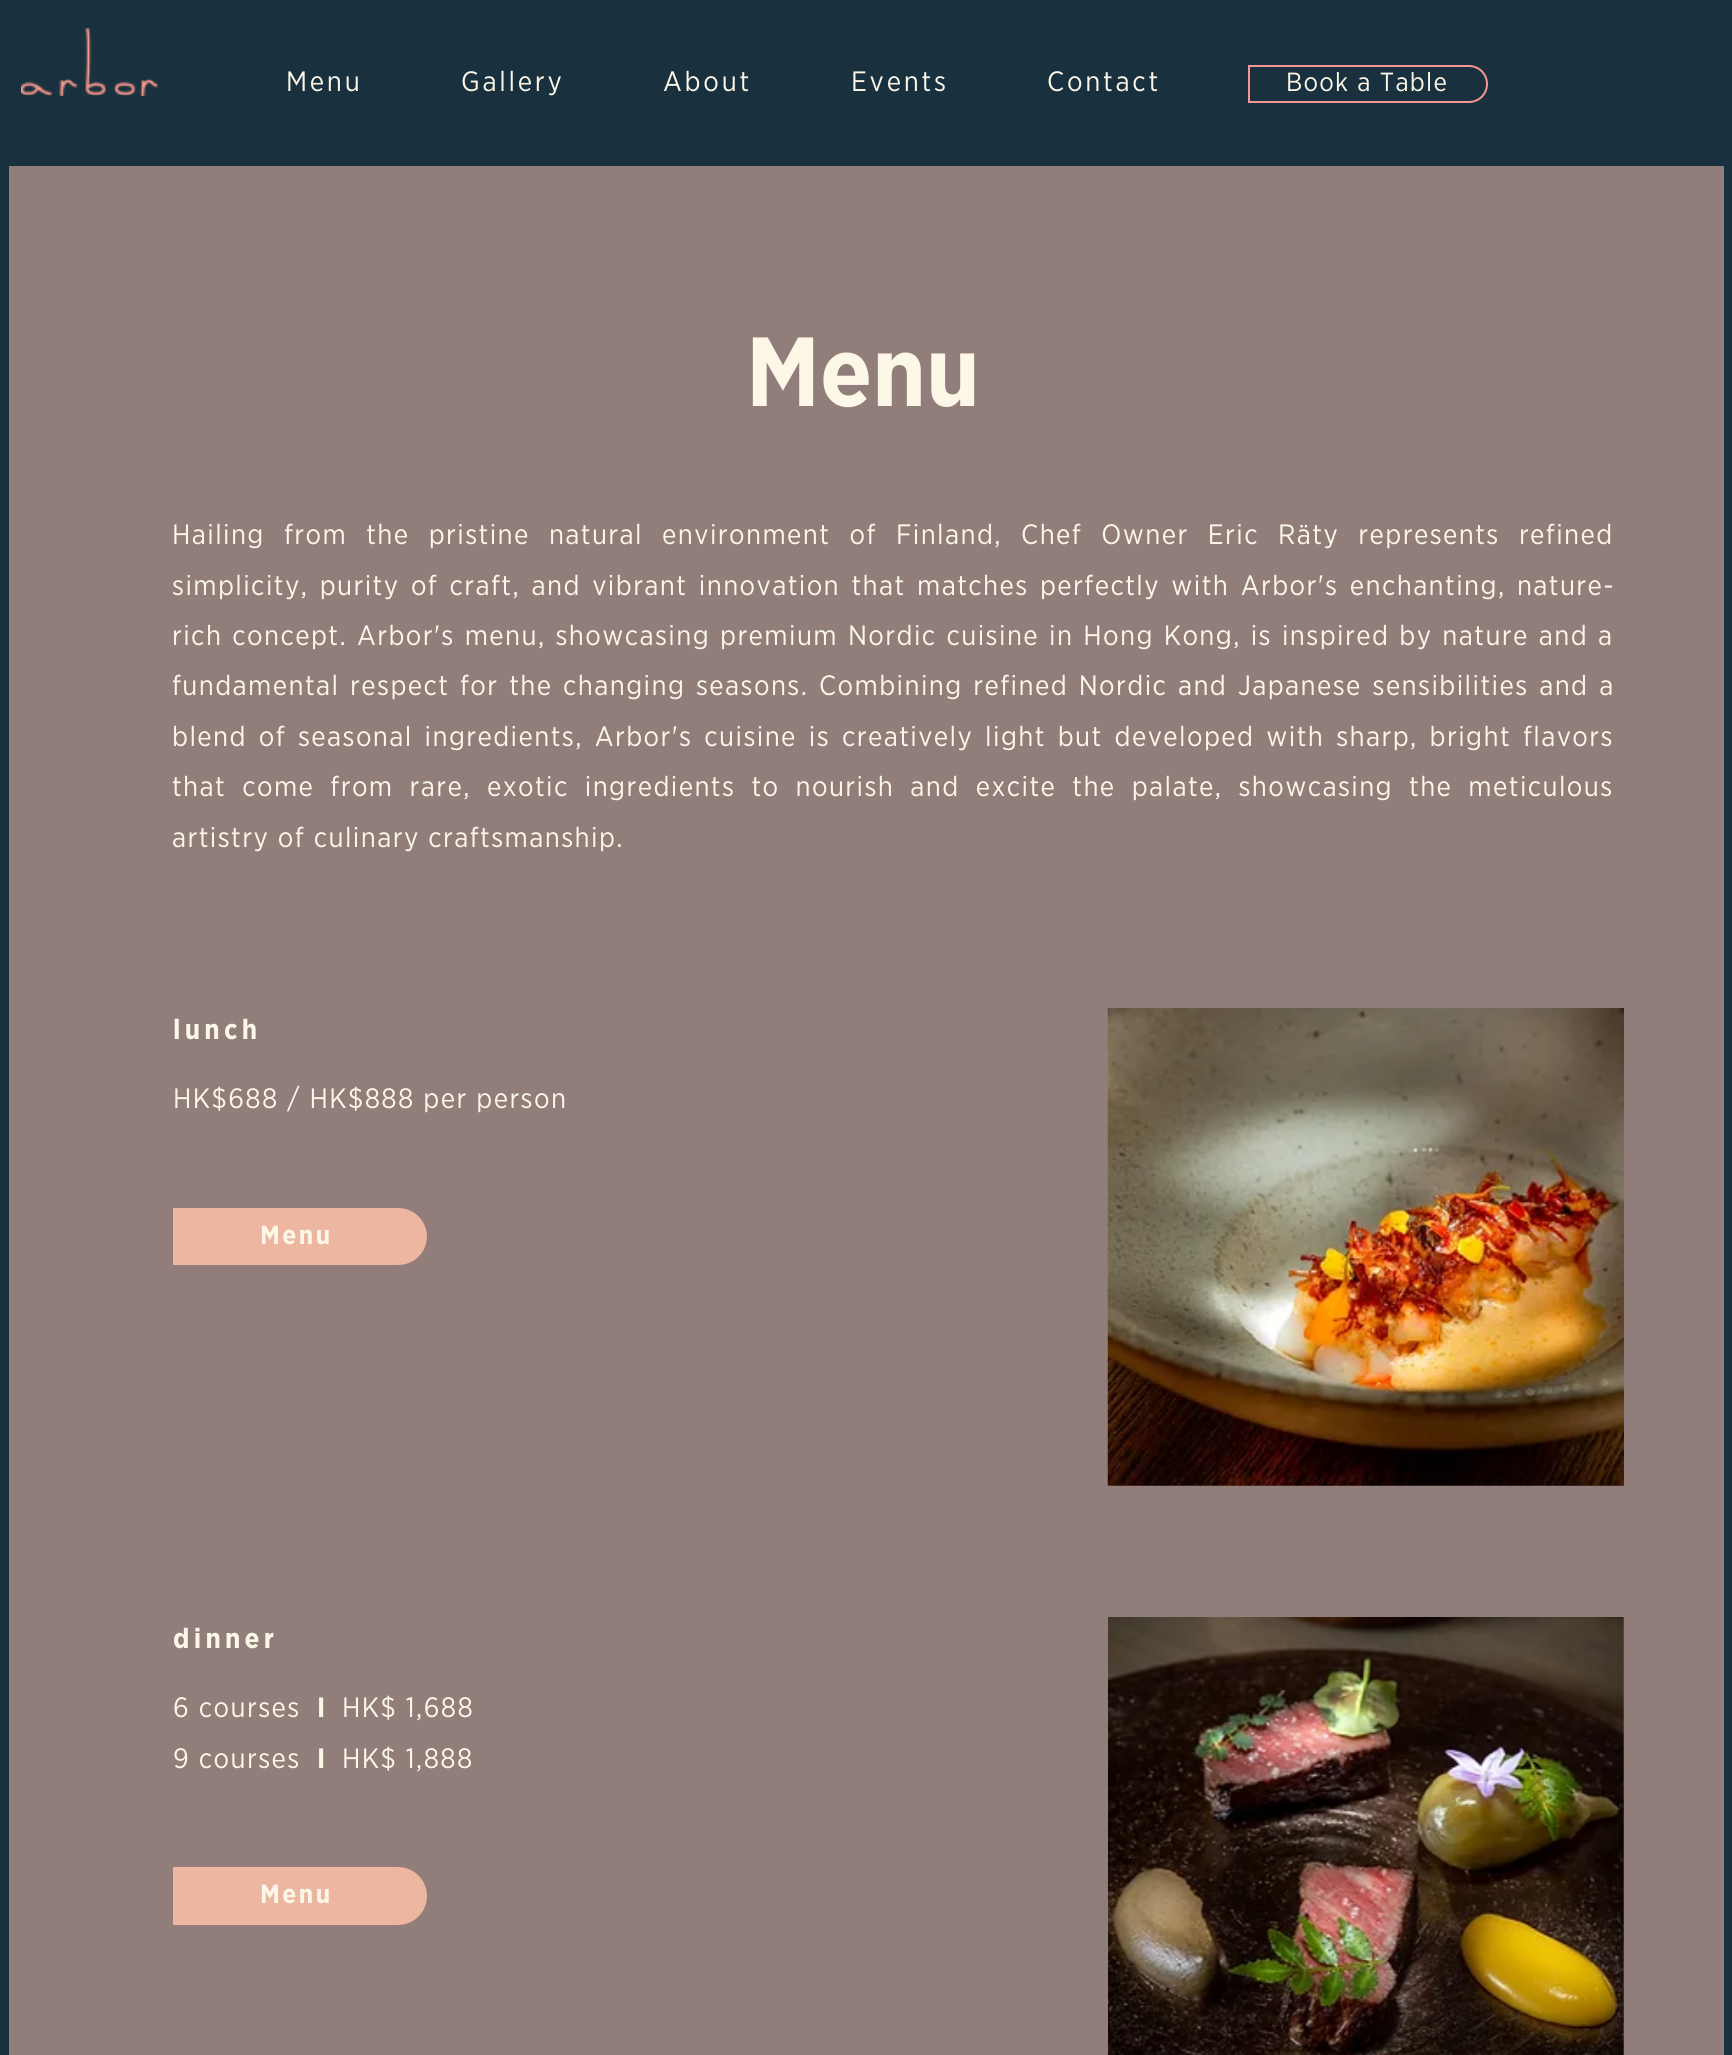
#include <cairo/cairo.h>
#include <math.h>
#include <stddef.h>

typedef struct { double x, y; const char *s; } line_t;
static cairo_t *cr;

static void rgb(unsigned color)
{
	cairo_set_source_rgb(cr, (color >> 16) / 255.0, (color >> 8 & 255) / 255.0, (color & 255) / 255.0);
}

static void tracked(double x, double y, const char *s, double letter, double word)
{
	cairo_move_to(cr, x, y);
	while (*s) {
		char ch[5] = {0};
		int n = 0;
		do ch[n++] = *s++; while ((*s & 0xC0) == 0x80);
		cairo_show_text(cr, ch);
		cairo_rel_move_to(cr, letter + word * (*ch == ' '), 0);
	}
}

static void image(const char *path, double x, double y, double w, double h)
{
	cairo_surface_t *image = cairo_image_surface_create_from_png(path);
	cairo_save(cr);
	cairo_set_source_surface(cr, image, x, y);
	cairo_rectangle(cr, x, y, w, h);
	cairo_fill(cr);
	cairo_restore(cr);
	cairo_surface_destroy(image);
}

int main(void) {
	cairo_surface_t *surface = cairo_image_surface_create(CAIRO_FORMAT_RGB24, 1732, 2055);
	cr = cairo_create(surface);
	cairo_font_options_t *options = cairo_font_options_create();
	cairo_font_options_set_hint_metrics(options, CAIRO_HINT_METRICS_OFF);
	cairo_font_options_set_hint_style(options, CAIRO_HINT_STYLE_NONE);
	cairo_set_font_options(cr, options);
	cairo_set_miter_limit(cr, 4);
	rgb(0x19313f);
	cairo_paint(cr);
	image("img/1.png", 21, 28, 137, 69);
	cairo_new_path(cr);
	cairo_move_to(cr, 1249, 66);
	cairo_line_to(cr, 1469, 66);
	cairo_curve_to(cr, 1479, 66, 1487, 74, 1487, 84);
	cairo_curve_to(cr, 1487, 94, 1479, 102, 1469, 102);
	cairo_line_to(cr, 1249, 102);
	cairo_close_path(cr);
	rgb(0xf79494);
	cairo_stroke(cr);
	rgb(0x917e7a);
	cairo_rectangle(cr, 9, 166, 1715, 1889);
	cairo_fill(cr);
	image("img/2.png", 1107, 1008, 517, 478);
	rgb(0xecb6a1);
	cairo_new_path(cr);
	cairo_move_to(cr, 173, 1208);
	cairo_line_to(cr, 398.5, 1208);
	cairo_curve_to(cr, 414, 1208, 427, 1221, 427, 1236.5);
	cairo_curve_to(cr, 427, 1252, 414, 1265, 398.5, 1265);
	cairo_line_to(cr, 173, 1265);
	cairo_close_path(cr);
	cairo_fill(cr);
	image("img/3.png", 1108, 1617, 516, 438);
	cairo_new_path(cr);
	cairo_move_to(cr, 173, 1867);
	cairo_line_to(cr, 398, 1867);
	cairo_curve_to(cr, 414, 1867, 427, 1880, 427, 1896);
	cairo_curve_to(cr, 427, 1912, 414, 1925, 398, 1925);
	cairo_line_to(cr, 173, 1925);
	cairo_close_path(cr);
	cairo_fill(cr);
	cairo_select_font_face(cr, "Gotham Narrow", CAIRO_FONT_SLANT_NORMAL, CAIRO_FONT_WEIGHT_NORMAL);
	cairo_set_font_size(cr, 28);
	rgb(0xfdf7e7);
	{
		static const line_t items[] = {
			{286, 91, "Menu"},
			{461, 91, "Gallery"},
			{663, 91, "About"},
			{851, 91, "Events"},
			{1047, 91, "Contact"},
		};
		for (size_t i = 0; i < sizeof items / sizeof *items; i++) {
			tracked(items[i].x, items[i].y, items[i].s, 2.75, 0);
		}
	}
	cairo_set_font_size(cr, 26.25);
	tracked(1286, 91, "Book a Table", 1.25, 0);
	cairo_select_font_face(cr, "Gotham Narrow", CAIRO_FONT_SLANT_NORMAL, CAIRO_FONT_WEIGHT_BOLD);
	cairo_set_font_size(cr, 98);
	cairo_move_to(cr, 746, 406);
	cairo_show_text(cr, "Menu");
	cairo_select_font_face(cr, "Gotham Narrow", CAIRO_FONT_SLANT_NORMAL, CAIRO_FONT_WEIGHT_NORMAL);
	cairo_set_font_size(cr, 28);
	tracked(172, 544, "Hailing from the pristine natural environment of Finland, Chef Owner Eric Räty represents refined", 1.4, 10.5);
	tracked(172, 595, "simplicity, purity of craft, and vibrant innovation that matches perfectly with Arbor's enchanting, nature-", 1.4, 2.75);
	tracked(172, 645, "rich concept. Arbor's menu, showcasing premium Nordic cuisine in Hong Kong, is inspired by nature and a", 1.4, 1.3);
	tracked(172, 695, "fundamental respect for the changing seasons. Combining refined Nordic and Japanese sensibilities and a", 1.4, 2);
	tracked(172, 746, "blend of seasonal ingredients, Arbor's cuisine is creatively light but developed with sharp, bright flavors", 1.4, 3.25);
	tracked(172, 796, "that come from rare, exotic ingredients to nourish and excite the palate, showcasing the meticulous", 1.4, 7.4);
	tracked(172, 847, "artistry of culinary craftsmanship.", 1.4, 0);
	cairo_select_font_face(cr, "Gotham Narrow", CAIRO_FONT_SLANT_NORMAL, CAIRO_FONT_WEIGHT_BOLD);
	tracked(173, 1039, "lunch", 4.25, 0);
	cairo_select_font_face(cr, "Gotham Narrow", CAIRO_FONT_SLANT_NORMAL, CAIRO_FONT_WEIGHT_NORMAL);
	tracked(173, 1108, "HK$688 / HK$888 per person", 1.4, 0);
	cairo_select_font_face(cr, "Gotham Narrow", CAIRO_FONT_SLANT_NORMAL, CAIRO_FONT_WEIGHT_BOLD);
	cairo_set_font_size(cr, 26.25);
	tracked(260, 1244, "Menu", 2.5, 0);
	cairo_set_font_size(cr, 28);
	tracked(173, 1648, "dinner", 4.25, 0);
	cairo_select_font_face(cr, "Gotham Narrow", CAIRO_FONT_SLANT_NORMAL, CAIRO_FONT_WEIGHT_NORMAL);
	tracked(173, 1717, "6 courses", 1.4, 0);
	cairo_select_font_face(cr, "Gotham Narrow", CAIRO_FONT_SLANT_NORMAL, CAIRO_FONT_WEIGHT_BOLD);
	tracked(317, 1717, "I", 1.4, 0);
	cairo_select_font_face(cr, "Gotham Narrow", CAIRO_FONT_SLANT_NORMAL, CAIRO_FONT_WEIGHT_NORMAL);
	tracked(342, 1717, "HK$ 1,688", 1.4, 0);
	tracked(173, 1768, "9 courses", 1.4, 0);
	cairo_select_font_face(cr, "Gotham Narrow", CAIRO_FONT_SLANT_NORMAL, CAIRO_FONT_WEIGHT_BOLD);
	tracked(317, 1768, "I", 1.4, 0);
	cairo_select_font_face(cr, "Gotham Narrow", CAIRO_FONT_SLANT_NORMAL, CAIRO_FONT_WEIGHT_NORMAL);
	tracked(342, 1768, "HK$ 1,888", 1.4, 0);
	cairo_select_font_face(cr, "Gotham Narrow", CAIRO_FONT_SLANT_NORMAL, CAIRO_FONT_WEIGHT_BOLD);
	cairo_set_font_size(cr, 26.25);
	tracked(260, 1903, "Menu", 2.5, 0);
	cairo_surface_write_to_png(surface, "page.png");
	cairo_font_options_destroy(options);
	cairo_destroy(cr);
	cairo_surface_destroy(surface);
	return 0;
}
